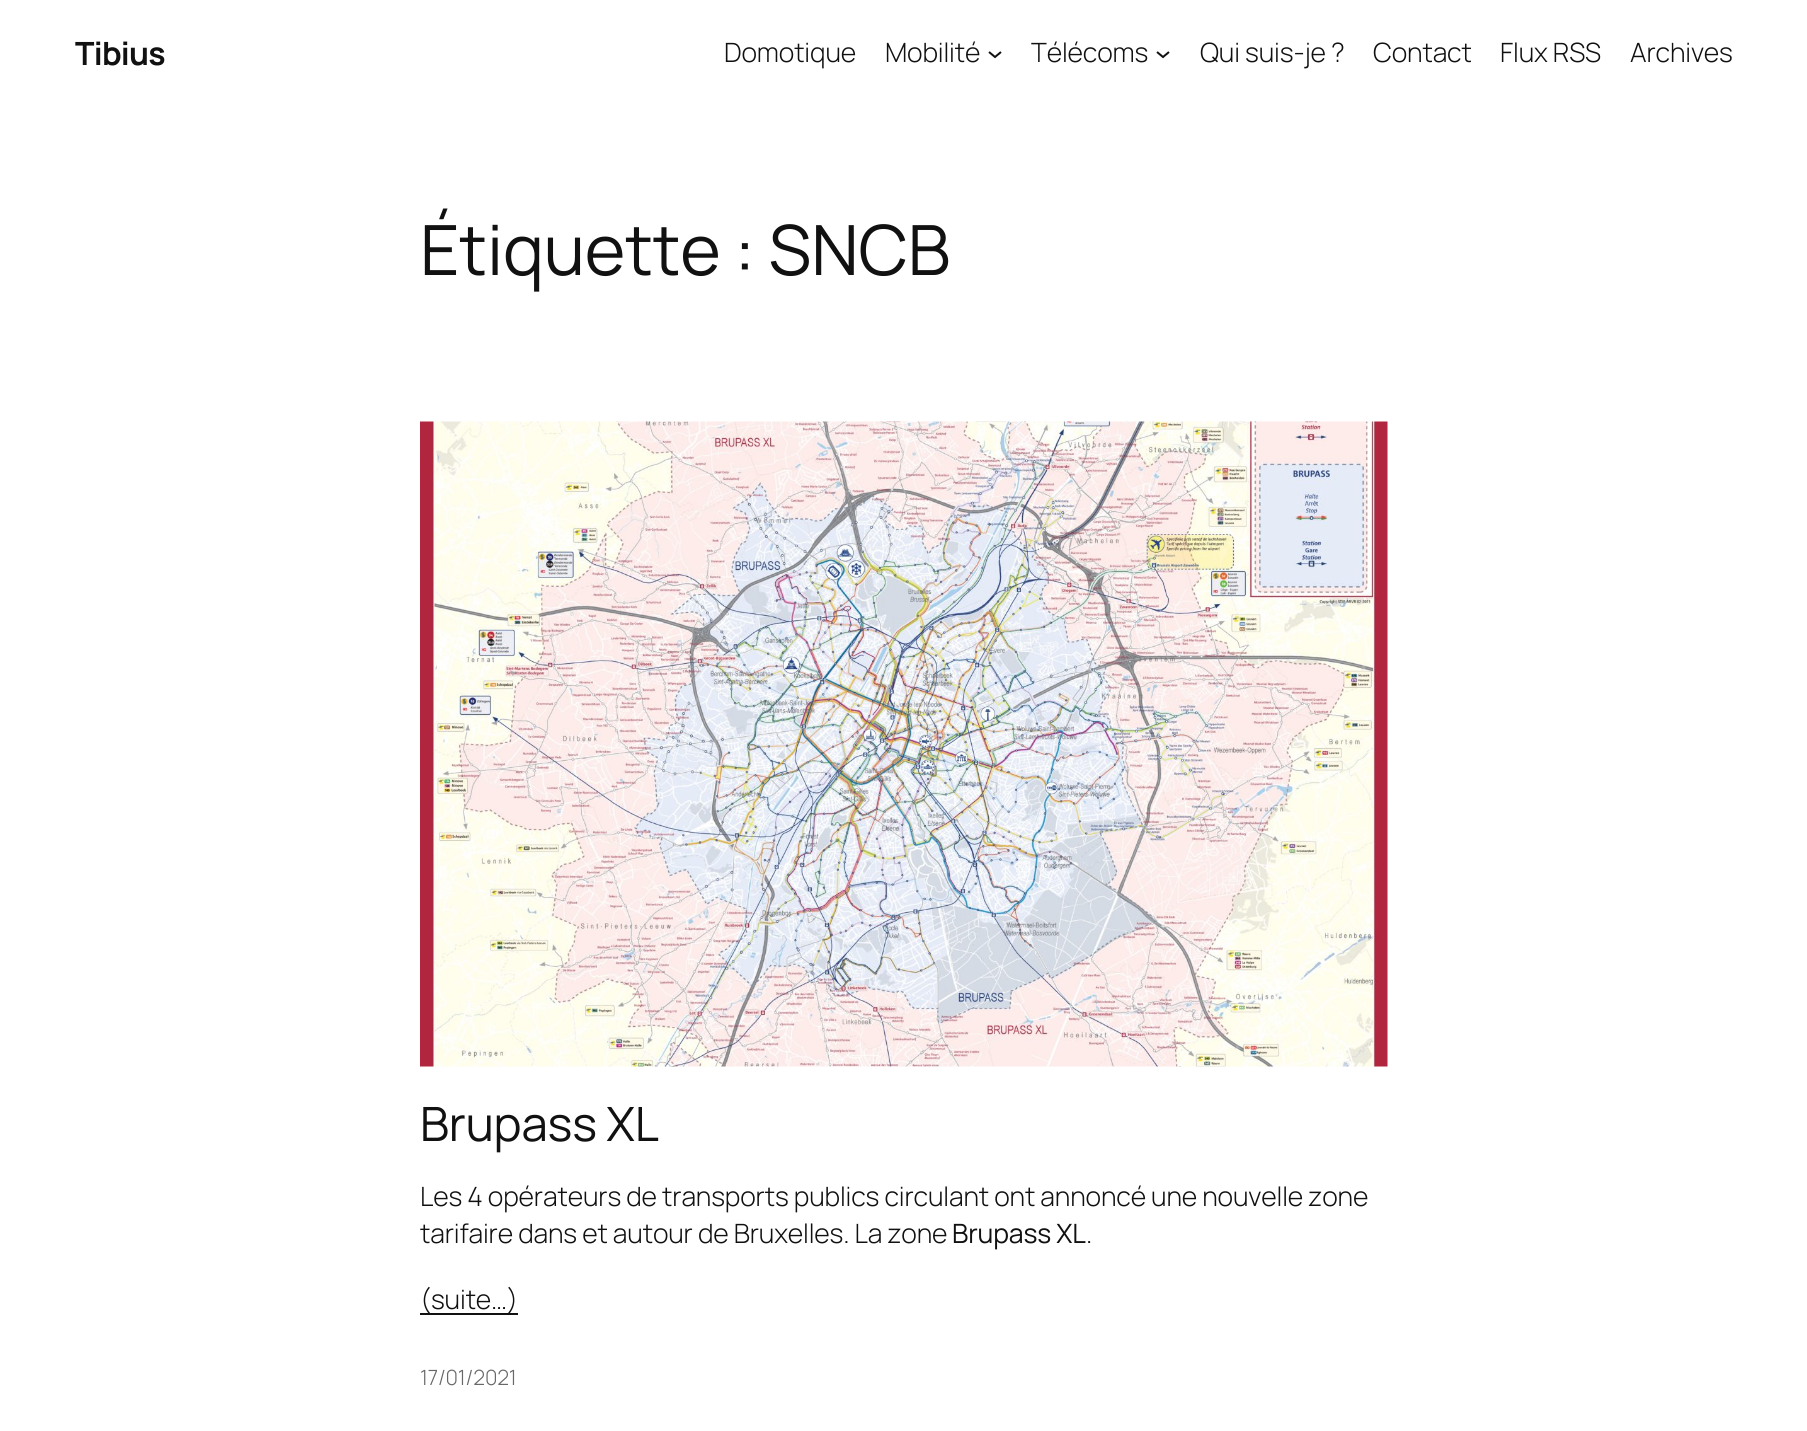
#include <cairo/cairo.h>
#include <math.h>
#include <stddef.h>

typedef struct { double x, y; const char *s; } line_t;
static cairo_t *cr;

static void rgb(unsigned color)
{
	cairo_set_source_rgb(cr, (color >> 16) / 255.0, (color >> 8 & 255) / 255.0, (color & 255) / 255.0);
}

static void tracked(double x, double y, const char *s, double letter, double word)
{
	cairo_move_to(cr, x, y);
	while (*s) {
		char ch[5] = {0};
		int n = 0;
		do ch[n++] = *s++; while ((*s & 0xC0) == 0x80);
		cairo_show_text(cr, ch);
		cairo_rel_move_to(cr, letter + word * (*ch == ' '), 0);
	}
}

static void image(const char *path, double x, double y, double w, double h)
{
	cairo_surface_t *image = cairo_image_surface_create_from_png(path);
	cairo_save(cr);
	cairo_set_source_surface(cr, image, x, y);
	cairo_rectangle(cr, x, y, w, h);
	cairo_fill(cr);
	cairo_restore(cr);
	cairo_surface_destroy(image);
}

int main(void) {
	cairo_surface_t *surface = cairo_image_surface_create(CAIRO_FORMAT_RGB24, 1807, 1431);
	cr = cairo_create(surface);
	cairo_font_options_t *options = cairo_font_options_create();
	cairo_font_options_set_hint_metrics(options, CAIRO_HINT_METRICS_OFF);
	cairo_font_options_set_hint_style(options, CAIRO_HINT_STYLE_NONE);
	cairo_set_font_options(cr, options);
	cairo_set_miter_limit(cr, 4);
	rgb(0xffffff);
	cairo_paint(cr);
	cairo_new_path(cr);
	cairo_move_to(cr, 989, 52);
	cairo_line_to(cr, 995, 57);
	cairo_line_to(cr, 1001, 52);
	rgb(0x111111);
	cairo_stroke(cr);
	cairo_new_path(cr);
	cairo_move_to(cr, 1157, 52);
	cairo_line_to(cr, 1163, 57);
	cairo_line_to(cr, 1169, 52);
	cairo_stroke(cr);
	image("img/1.png", 420, 421, 968, 646);
	cairo_rectangle(cr, 420, 1313, 98, 2);
	cairo_fill(cr);
	cairo_select_font_face(cr, "Manrope", CAIRO_FONT_SLANT_NORMAL, CAIRO_FONT_WEIGHT_BOLD);
	cairo_set_font_size(cr, 32);
	tracked(75, 65, "Tibius", -0.75, 0);
	cairo_select_font_face(cr, "Manrope Light", CAIRO_FONT_SLANT_NORMAL, CAIRO_FONT_WEIGHT_NORMAL);
	cairo_set_font_size(cr, 26.6);
	{
		static const line_t items[] = {
			{724, 62, "Domotique"},
			{885, 62, "Mobilité"},
			{1031, 62, "Télécoms"},
			{1200, 62, "Qui suis-je ?"},
			{1373, 62, "Contact"},
			{1500, 62, "Flux RSS"},
			{1630, 62, "Archives"},
		};
		for (size_t i = 0; i < sizeof items / sizeof *items; i++) {
			tracked(items[i].x, items[i].y, items[i].s, -0.15, 0);
		}
	}
	cairo_select_font_face(cr, "Manrope", CAIRO_FONT_SLANT_NORMAL, CAIRO_FONT_WEIGHT_NORMAL);
	cairo_set_font_size(cr, 69.25);
	tracked(420, 275, "Étiquette : SNCB", -0.15, 0);
	cairo_set_font_size(cr, 47.25);
	tracked(420, 1141, "Brupass XL", -0.15, 0);
	cairo_select_font_face(cr, "Manrope Light", CAIRO_FONT_SLANT_NORMAL, CAIRO_FONT_WEIGHT_NORMAL);
	cairo_set_font_size(cr, 26.6);
	tracked(420, 1206, "Les 4 opérateurs de transports publics circulant ont annoncé une nouvelle zone", -0.15, 0);
	tracked(420, 1243, "tarifaire dans et autour de Bruxelles. La zone", -0.15, 0);
	cairo_select_font_face(cr, "Manrope", CAIRO_FONT_SLANT_NORMAL, CAIRO_FONT_WEIGHT_NORMAL);
	tracked(952, 1243, "Brupass XL", -0.15, 0);
	cairo_select_font_face(cr, "Manrope Light", CAIRO_FONT_SLANT_NORMAL, CAIRO_FONT_WEIGHT_NORMAL);
	tracked(1086, 1243, ".", -0.15, 0);
	tracked(420, 1309, "(suite…)", -0.15, 0);
	cairo_set_font_size(cr, 21);
	rgb(0x686868);
	tracked(420, 1385, "17/01/2021", -0.15, 0);
	cairo_surface_write_to_png(surface, "page.png");
	cairo_font_options_destroy(options);
	cairo_destroy(cr);
	cairo_surface_destroy(surface);
	return 0;
}
